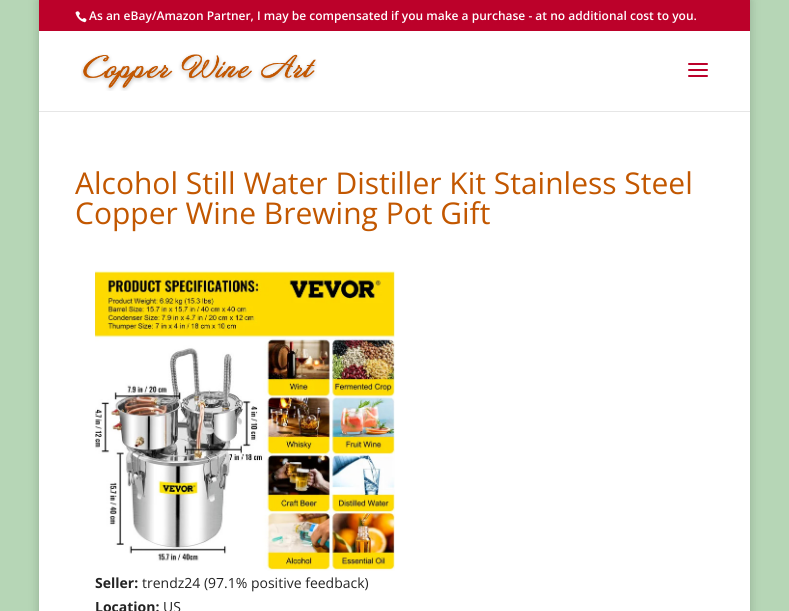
#include <cairo/cairo.h>
#include <math.h>
#include <stddef.h>

static cairo_t *cr;

static void rgb(unsigned color)
{
	cairo_set_source_rgb(cr, (color >> 16) / 255.0, (color >> 8 & 255) / 255.0, (color & 255) / 255.0);
}

static void rrect(double x, double y, double w, double h, double r)
{
	cairo_new_sub_path(cr);
	cairo_arc(cr, x + w - r, y + h - r, r, 0, M_PI / 2);
	cairo_arc(cr, x + r, y + h - r, r, M_PI / 2, M_PI);
	cairo_arc(cr, x + r, y + r, r, M_PI, 1.5 * M_PI);
	cairo_arc(cr, x + w - r, y + r, r, 1.5 * M_PI, 2 * M_PI);
	cairo_close_path(cr);
}

static void soft_shadow(double x, double y, double w, double h, double r, double blur, double alpha)
{
	cairo_push_group_with_content(cr, CAIRO_CONTENT_ALPHA);
	cairo_set_operator(cr, CAIRO_OPERATOR_SOURCE);
	for (int i = 15; i >= -15 && fmin(w, h) + blur * i / 3 > 0; i -= 2) {
		double e = blur * i / 6;
		cairo_set_source_rgba(cr, 0, 0, 0, alpha * erfc((i - 1) / 8.5) / 2);
		rrect(x - e, y - e, w + 2 * e, h + 2 * e, fmax(0, fmin(r + e + blur * .6, fmin(w, h) / 2 + e)));
		cairo_fill(cr);
	}
	cairo_pattern_t *soft = cairo_pop_group(cr);
	cairo_mask(cr, soft);
	cairo_pattern_destroy(soft);
}

static void image(const char *path, double x, double y, double w, double h)
{
	cairo_surface_t *image = cairo_image_surface_create_from_png(path);
	cairo_save(cr);
	cairo_set_source_surface(cr, image, x, y);
	cairo_rectangle(cr, x, y, w, h);
	cairo_fill(cr);
	cairo_restore(cr);
	cairo_surface_destroy(image);
}

int main(void) {
	cairo_surface_t *surface = cairo_image_surface_create(CAIRO_FORMAT_RGB24, 789, 611);
	cr = cairo_create(surface);
	cairo_font_options_t *options = cairo_font_options_create();
	cairo_font_options_set_hint_metrics(options, CAIRO_HINT_METRICS_OFF);
	cairo_font_options_set_hint_style(options, CAIRO_HINT_STYLE_NONE);
	cairo_set_font_options(cr, options);
	cairo_set_miter_limit(cr, 4);
	rgb(0xb6d6b6);
	cairo_paint(cr);
	rgb(0x000000);
	soft_shadow(39, 0, 711, 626, 0, 5, 0.2);
	rgb(0xbc012a);
	cairo_rectangle(cr, 39, 0, 711, 31);
	cairo_fill(cr);
	image("img/1.png", 75, 11, 12, 12);
	rgb(0xe6e6e6);
	cairo_rectangle(cr, 39, 111, 711, 1);
	cairo_fill(cr);
	rgb(0xffffff);
	cairo_rectangle(cr, 39, 31, 711, 80);
	cairo_fill(cr);
	image("img/2.png", 81, 54, 236, 37);
	image("img/3.png", 688, 63, 20, 14);
	cairo_rectangle(cr, 39, 112, 711, 499);
	cairo_fill(cr);
	image("img/4.png", 95, 270, 300, 301);
	cairo_select_font_face(cr, "Open Sans SemiBold", CAIRO_FONT_SLANT_NORMAL, CAIRO_FONT_WEIGHT_NORMAL);
	cairo_set_font_size(cr, 12);
	cairo_move_to(cr, 89, 20);
	cairo_show_text(cr, "As an eBay/Amazon Partner, I may be compensated if you make a purchase - at no additional cost to you.");
	cairo_select_font_face(cr, "Open Sans", CAIRO_FONT_SLANT_NORMAL, CAIRO_FONT_WEIGHT_NORMAL);
	cairo_set_font_size(cr, 30);
	rgb(0xc25700);
	cairo_move_to(cr, 75, 194);
	cairo_show_text(cr, "Alcohol Still Water Distiller Kit Stainless Steel");
	cairo_move_to(cr, 75, 224);
	cairo_show_text(cr, "Copper Wine Brewing Pot Gift");
	cairo_select_font_face(cr, "Open Sans", CAIRO_FONT_SLANT_NORMAL, CAIRO_FONT_WEIGHT_BOLD);
	cairo_set_font_size(cr, 14);
	rgb(0x232323);
	cairo_move_to(cr, 95, 588);
	cairo_show_text(cr, "Seller:");
	cairo_select_font_face(cr, "Open Sans", CAIRO_FONT_SLANT_NORMAL, CAIRO_FONT_WEIGHT_NORMAL);
	cairo_move_to(cr, 142, 588);
	cairo_show_text(cr, "trendz24 (97.1% positive feedback)");
	cairo_select_font_face(cr, "Open Sans", CAIRO_FONT_SLANT_NORMAL, CAIRO_FONT_WEIGHT_BOLD);
	cairo_move_to(cr, 95, 612);
	cairo_show_text(cr, "Location:");
	cairo_select_font_face(cr, "Open Sans", CAIRO_FONT_SLANT_NORMAL, CAIRO_FONT_WEIGHT_NORMAL);
	cairo_move_to(cr, 163, 612);
	cairo_show_text(cr, "US");
	cairo_surface_write_to_png(surface, "page.png");
	cairo_font_options_destroy(options);
	cairo_destroy(cr);
	cairo_surface_destroy(surface);
	return 0;
}
